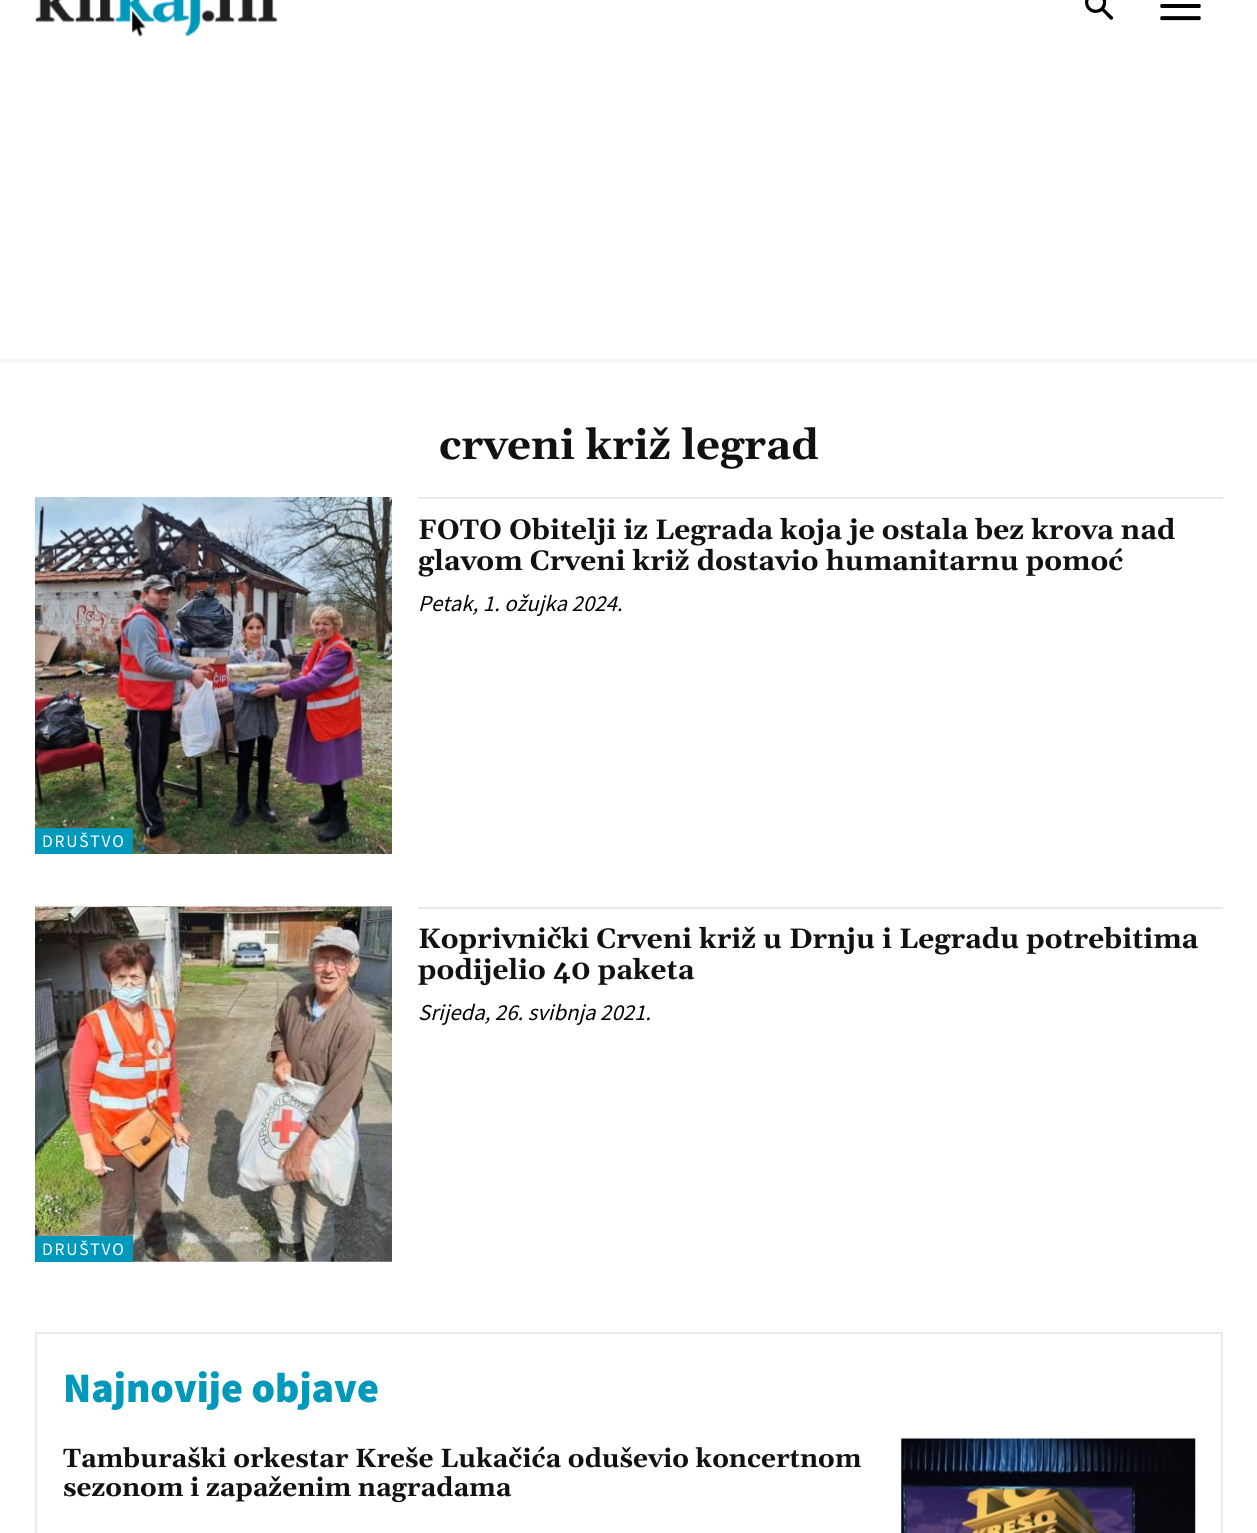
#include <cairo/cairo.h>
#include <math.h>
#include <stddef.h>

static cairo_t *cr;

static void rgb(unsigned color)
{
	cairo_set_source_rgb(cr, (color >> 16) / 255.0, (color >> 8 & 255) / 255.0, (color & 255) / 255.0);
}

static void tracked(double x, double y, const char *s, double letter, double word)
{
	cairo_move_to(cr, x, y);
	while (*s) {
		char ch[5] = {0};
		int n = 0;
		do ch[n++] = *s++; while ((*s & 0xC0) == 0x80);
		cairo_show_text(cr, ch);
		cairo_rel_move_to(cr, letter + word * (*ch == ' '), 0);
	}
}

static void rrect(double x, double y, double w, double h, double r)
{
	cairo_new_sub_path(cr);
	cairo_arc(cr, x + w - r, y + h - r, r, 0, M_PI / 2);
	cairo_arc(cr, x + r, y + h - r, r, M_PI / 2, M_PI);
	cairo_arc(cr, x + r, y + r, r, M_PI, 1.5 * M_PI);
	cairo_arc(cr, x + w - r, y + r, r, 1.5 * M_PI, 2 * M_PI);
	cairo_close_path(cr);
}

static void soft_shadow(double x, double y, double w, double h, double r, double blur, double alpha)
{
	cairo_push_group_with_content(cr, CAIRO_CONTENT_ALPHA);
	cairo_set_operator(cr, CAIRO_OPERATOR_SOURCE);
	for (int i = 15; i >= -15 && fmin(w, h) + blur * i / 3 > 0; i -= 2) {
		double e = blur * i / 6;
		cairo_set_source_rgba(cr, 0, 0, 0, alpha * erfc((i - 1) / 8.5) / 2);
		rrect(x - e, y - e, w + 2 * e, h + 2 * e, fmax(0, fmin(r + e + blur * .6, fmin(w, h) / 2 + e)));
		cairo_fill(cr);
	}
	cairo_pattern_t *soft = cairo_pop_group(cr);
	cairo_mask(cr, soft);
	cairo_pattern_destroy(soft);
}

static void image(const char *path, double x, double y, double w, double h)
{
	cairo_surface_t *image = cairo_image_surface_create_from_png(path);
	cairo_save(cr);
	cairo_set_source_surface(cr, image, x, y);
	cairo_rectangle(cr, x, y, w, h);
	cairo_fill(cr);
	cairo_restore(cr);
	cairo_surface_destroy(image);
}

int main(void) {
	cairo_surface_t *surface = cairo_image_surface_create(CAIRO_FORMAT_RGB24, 1257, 1533);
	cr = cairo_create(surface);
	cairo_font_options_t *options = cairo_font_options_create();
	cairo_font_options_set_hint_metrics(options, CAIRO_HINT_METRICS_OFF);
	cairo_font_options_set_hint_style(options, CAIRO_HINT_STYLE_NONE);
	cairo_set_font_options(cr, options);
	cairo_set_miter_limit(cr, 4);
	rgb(0xffffff);
	cairo_paint(cr);
	image("img/1.png", 35, 0, 243, 37);
	image("img/2.png", 1085, 0, 29, 20);
	image("img/3.png", 1160, 4, 41, 17);
	cairo_save(cr);
	cairo_rectangle(cr, 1, 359, 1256, 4);
	cairo_clip(cr);
	rgb(0x000000);
	soft_shadow(2, -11, 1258, 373, 0, 3.5, 0.06);
	cairo_restore(cr);
	rgb(0xeaeaea);
	cairo_rectangle(cr, 418, 497, 805, 2);
	cairo_fill(cr);
	image("img/4.png", 35, 497, 357, 357);
	rgb(0x0099bb);
	cairo_rectangle(cr, 35, 828, 98, 26);
	cairo_fill(cr);
	rgb(0xeaeaea);
	cairo_rectangle(cr, 418, 907, 805, 2);
	cairo_fill(cr);
	image("img/5.png", 35, 906, 357, 356);
	rgb(0x0099bb);
	cairo_rectangle(cr, 35, 1236, 98, 26);
	cairo_fill(cr);
	cairo_rectangle(cr, 36, 1333, 1186, 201);
	rgb(0xeaeaea);
	cairo_stroke(cr);
	image("img/6.png", 901, 1438, 295, 95);
	cairo_select_font_face(cr, "Gelasio", CAIRO_FONT_SLANT_NORMAL, CAIRO_FONT_WEIGHT_BOLD);
	cairo_set_font_size(cr, 42);
	rgb(0x111111);
	cairo_move_to(cr, 439, 459);
	cairo_show_text(cr, "crveni križ legrad");
	cairo_set_font_size(cr, 28);
	cairo_move_to(cr, 418, 539);
	cairo_show_text(cr, "FOTO Obitelji iz Legrada koja je ostala bez krova nad");
	cairo_move_to(cr, 418, 570);
	cairo_show_text(cr, "glavom Crveni križ dostavio humanitarnu pomoć");
	cairo_select_font_face(cr, "Source Sans Pro", CAIRO_FONT_SLANT_ITALIC, CAIRO_FONT_WEIGHT_NORMAL);
	cairo_set_font_size(cr, 22.75);
	rgb(0x000000);
	cairo_move_to(cr, 418, 611);
	cairo_show_text(cr, "Petak, 1. ožujka 2024.");
	cairo_select_font_face(cr, "Source Sans Pro", CAIRO_FONT_SLANT_NORMAL, CAIRO_FONT_WEIGHT_NORMAL);
	cairo_set_font_size(cr, 17.5);
	rgb(0xffffff);
	tracked(42, 847, "DRUŠTVO", 1.75, 0);
	cairo_select_font_face(cr, "Gelasio", CAIRO_FONT_SLANT_NORMAL, CAIRO_FONT_WEIGHT_BOLD);
	cairo_set_font_size(cr, 28);
	rgb(0x111111);
	cairo_move_to(cr, 418, 948);
	cairo_show_text(cr, "Koprivnički Crveni križ u Drnju i Legradu potrebitima");
	cairo_move_to(cr, 418, 979);
	cairo_show_text(cr, "podijelio 40 paketa");
	cairo_select_font_face(cr, "Source Sans Pro", CAIRO_FONT_SLANT_ITALIC, CAIRO_FONT_WEIGHT_NORMAL);
	cairo_set_font_size(cr, 22.75);
	rgb(0x000000);
	cairo_move_to(cr, 418, 1020);
	cairo_show_text(cr, "Srijeda, 26. svibnja 2021.");
	cairo_select_font_face(cr, "Source Sans Pro", CAIRO_FONT_SLANT_NORMAL, CAIRO_FONT_WEIGHT_NORMAL);
	cairo_set_font_size(cr, 17.5);
	rgb(0xffffff);
	tracked(42, 1255, "DRUŠTVO", 1.75, 0);
	cairo_select_font_face(cr, "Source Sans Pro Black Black", CAIRO_FONT_SLANT_NORMAL, CAIRO_FONT_WEIGHT_NORMAL);
	cairo_set_font_size(cr, 42);
	rgb(0x0099bb);
	cairo_move_to(cr, 63, 1402);
	cairo_show_text(cr, "Najnovije objave");
	cairo_select_font_face(cr, "Gelasio", CAIRO_FONT_SLANT_NORMAL, CAIRO_FONT_WEIGHT_BOLD);
	cairo_set_font_size(cr, 26.25);
	rgb(0x111111);
	cairo_move_to(cr, 63, 1467);
	cairo_show_text(cr, "Tamburaški orkestar Kreše Lukačića oduševio koncertnom");
	cairo_move_to(cr, 63, 1496);
	cairo_show_text(cr, "sezonom i zapaženim nagradama");
	cairo_surface_write_to_png(surface, "page.png");
	cairo_font_options_destroy(options);
	cairo_destroy(cr);
	cairo_surface_destroy(surface);
	return 0;
}
